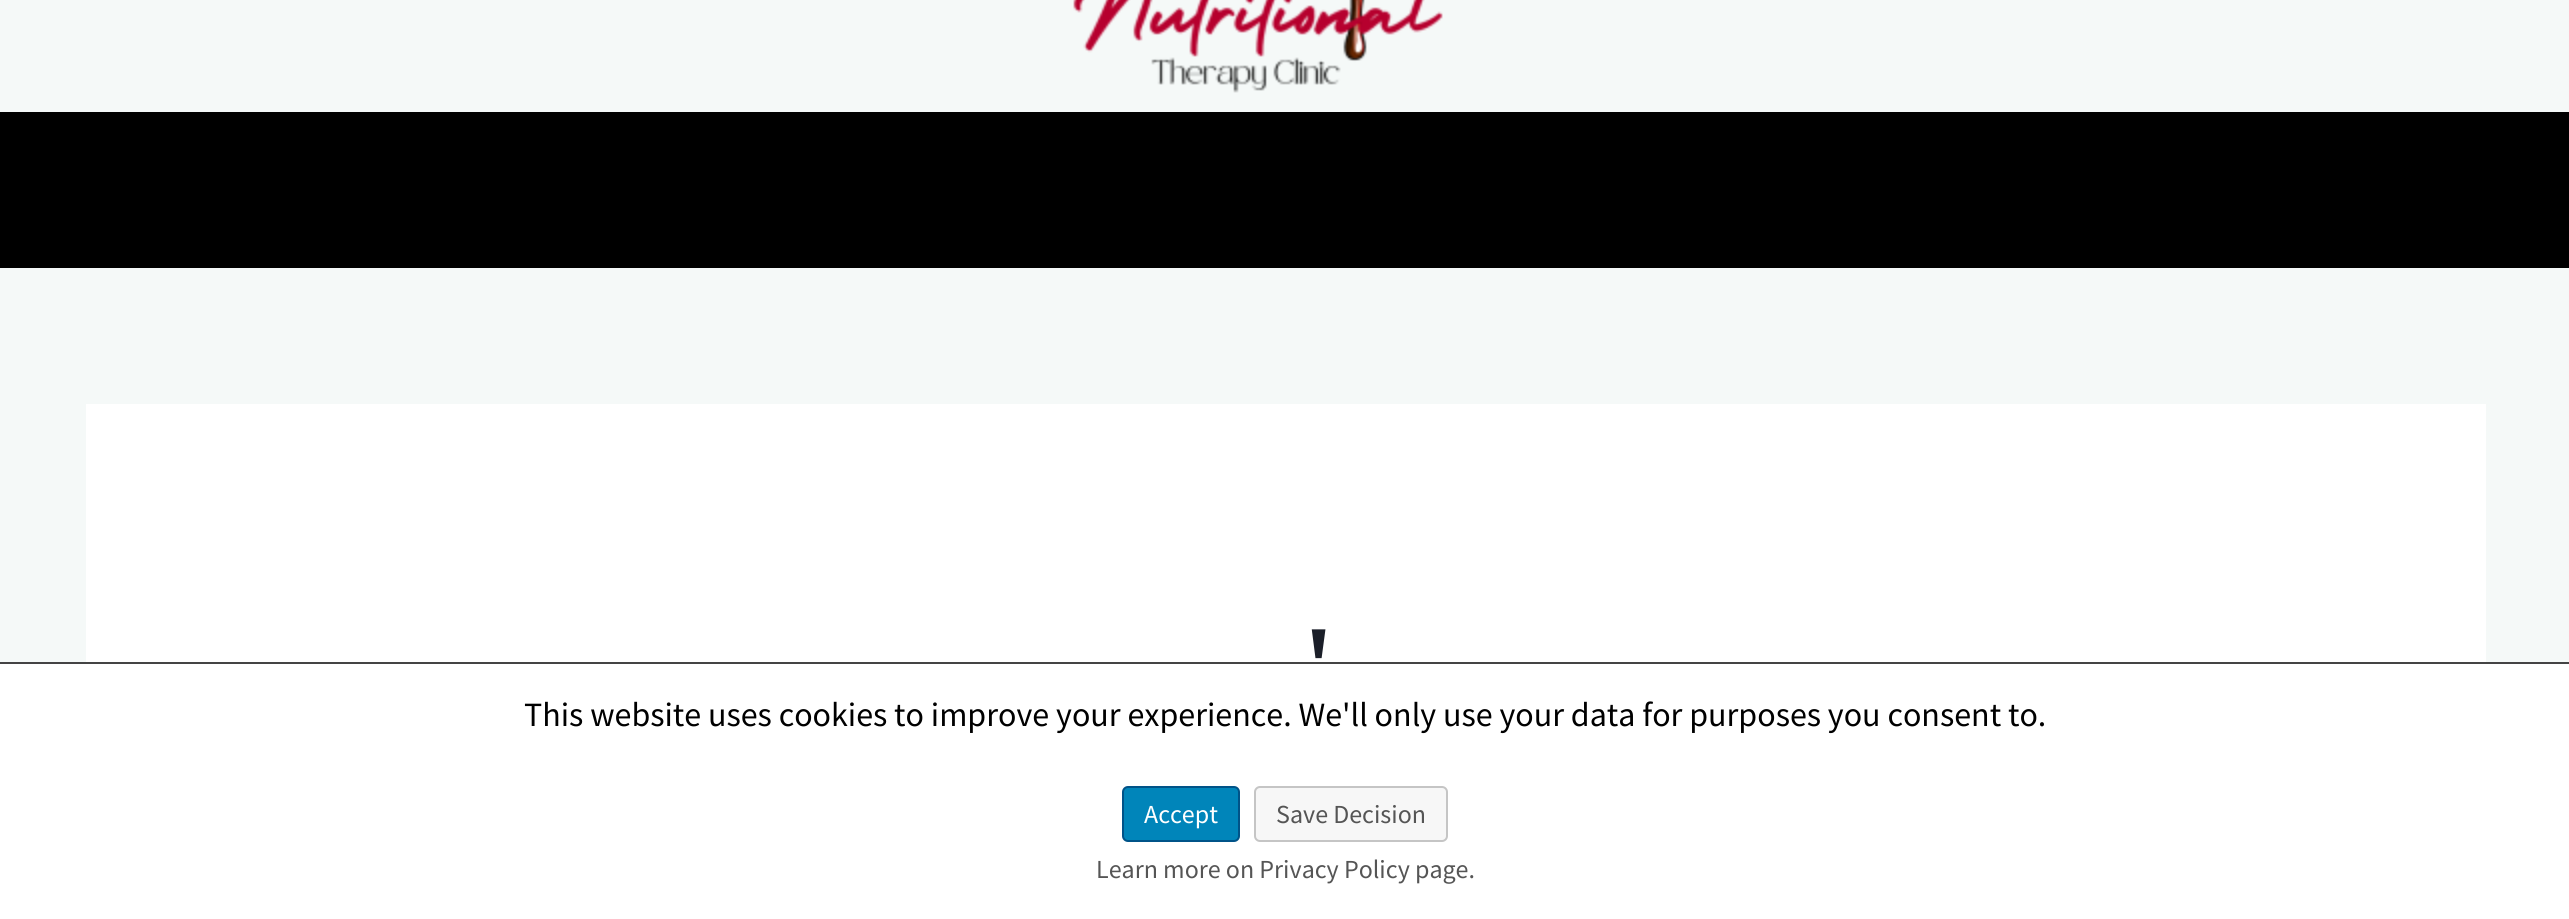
#include <cairo/cairo.h>
#include <math.h>
#include <stddef.h>

typedef struct { double x, y, w, h; unsigned color; } box_t;
static cairo_t *cr;

static void rgb(unsigned color)
{
	cairo_set_source_rgb(cr, (color >> 16) / 255.0, (color >> 8 & 255) / 255.0, (color & 255) / 255.0);
}

static void rrect(double x, double y, double w, double h, double r)
{
	cairo_new_sub_path(cr);
	cairo_arc(cr, x + w - r, y + h - r, r, 0, M_PI / 2);
	cairo_arc(cr, x + r, y + h - r, r, M_PI / 2, M_PI);
	cairo_arc(cr, x + r, y + r, r, M_PI, 1.5 * M_PI);
	cairo_arc(cr, x + w - r, y + r, r, 1.5 * M_PI, 2 * M_PI);
	cairo_close_path(cr);
}

static void image(const char *path, double x, double y, double w, double h)
{
	cairo_surface_t *image = cairo_image_surface_create_from_png(path);
	cairo_save(cr);
	cairo_set_source_surface(cr, image, x, y);
	cairo_rectangle(cr, x, y, w, h);
	cairo_fill(cr);
	cairo_restore(cr);
	cairo_surface_destroy(image);
}

int main(void) {
	cairo_surface_t *surface = cairo_image_surface_create(CAIRO_FORMAT_RGB24, 2569, 919);
	cr = cairo_create(surface);
	cairo_font_options_t *options = cairo_font_options_create();
	cairo_font_options_set_hint_metrics(options, CAIRO_HINT_METRICS_OFF);
	cairo_font_options_set_hint_style(options, CAIRO_HINT_STYLE_NONE);
	cairo_set_font_options(cr, options);
	cairo_set_miter_limit(cr, 4);
	rgb(0xf5f9f8);
	cairo_paint(cr);
	image("img/1.png", 1073, 0, 370, 93);
	{
		static const box_t items[] = {
			{0, 112, 2569, 156, 0x000000},
			{86, 404, 2400, 258, 0xffffff},
			{0, 664, 2569, 255, 0xffffff},
			{0, 662, 2569, 2, 0x444444},
		};
		for (size_t i = 0; i < sizeof items / sizeof *items; i++) {
			rgb(items[i].color);
			cairo_rectangle(cr, items[i].x, items[i].y, items[i].w, items[i].h);
			cairo_fill(cr);
		}
	}
	rgb(0x0085ba);
	rrect(1123, 787, 116, 54, 5);
	cairo_fill_preserve(cr);
	rgb(0x005388);
	cairo_stroke(cr);
	rgb(0xf7f7f7);
	rrect(1255, 787, 192, 54, 5);
	cairo_fill_preserve(cr);
	rgb(0xc5c5c5);
	cairo_stroke(cr);
	cairo_select_font_face(cr, "Rufina", CAIRO_FONT_SLANT_NORMAL, CAIRO_FONT_WEIGHT_BOLD);
	cairo_set_font_size(cr, 128);
	rgb(0x1b1f29);
	cairo_move_to(cr, 1306, 716);
	cairo_show_text(cr, "'");
	cairo_select_font_face(cr, "Source Sans Pro", CAIRO_FONT_SLANT_NORMAL, CAIRO_FONT_WEIGHT_NORMAL);
	cairo_set_font_size(cr, 34);
	rgb(0x000000);
	cairo_move_to(cr, 524, 726);
	cairo_show_text(cr, "This website uses cookies to improve your experience. We'll only use your data for purposes you consent to.");
	cairo_set_font_size(cr, 26);
	rgb(0xffffff);
	cairo_move_to(cr, 1144, 823);
	cairo_show_text(cr, "Accept");
	rgb(0x555555);
	cairo_move_to(cr, 1276, 823);
	cairo_show_text(cr, "Save Decision");
	cairo_move_to(cr, 1096, 878);
	cairo_show_text(cr, "Learn more on Privacy Policy page.");
	cairo_surface_write_to_png(surface, "page.png");
	cairo_font_options_destroy(options);
	cairo_destroy(cr);
	cairo_surface_destroy(surface);
	return 0;
}
